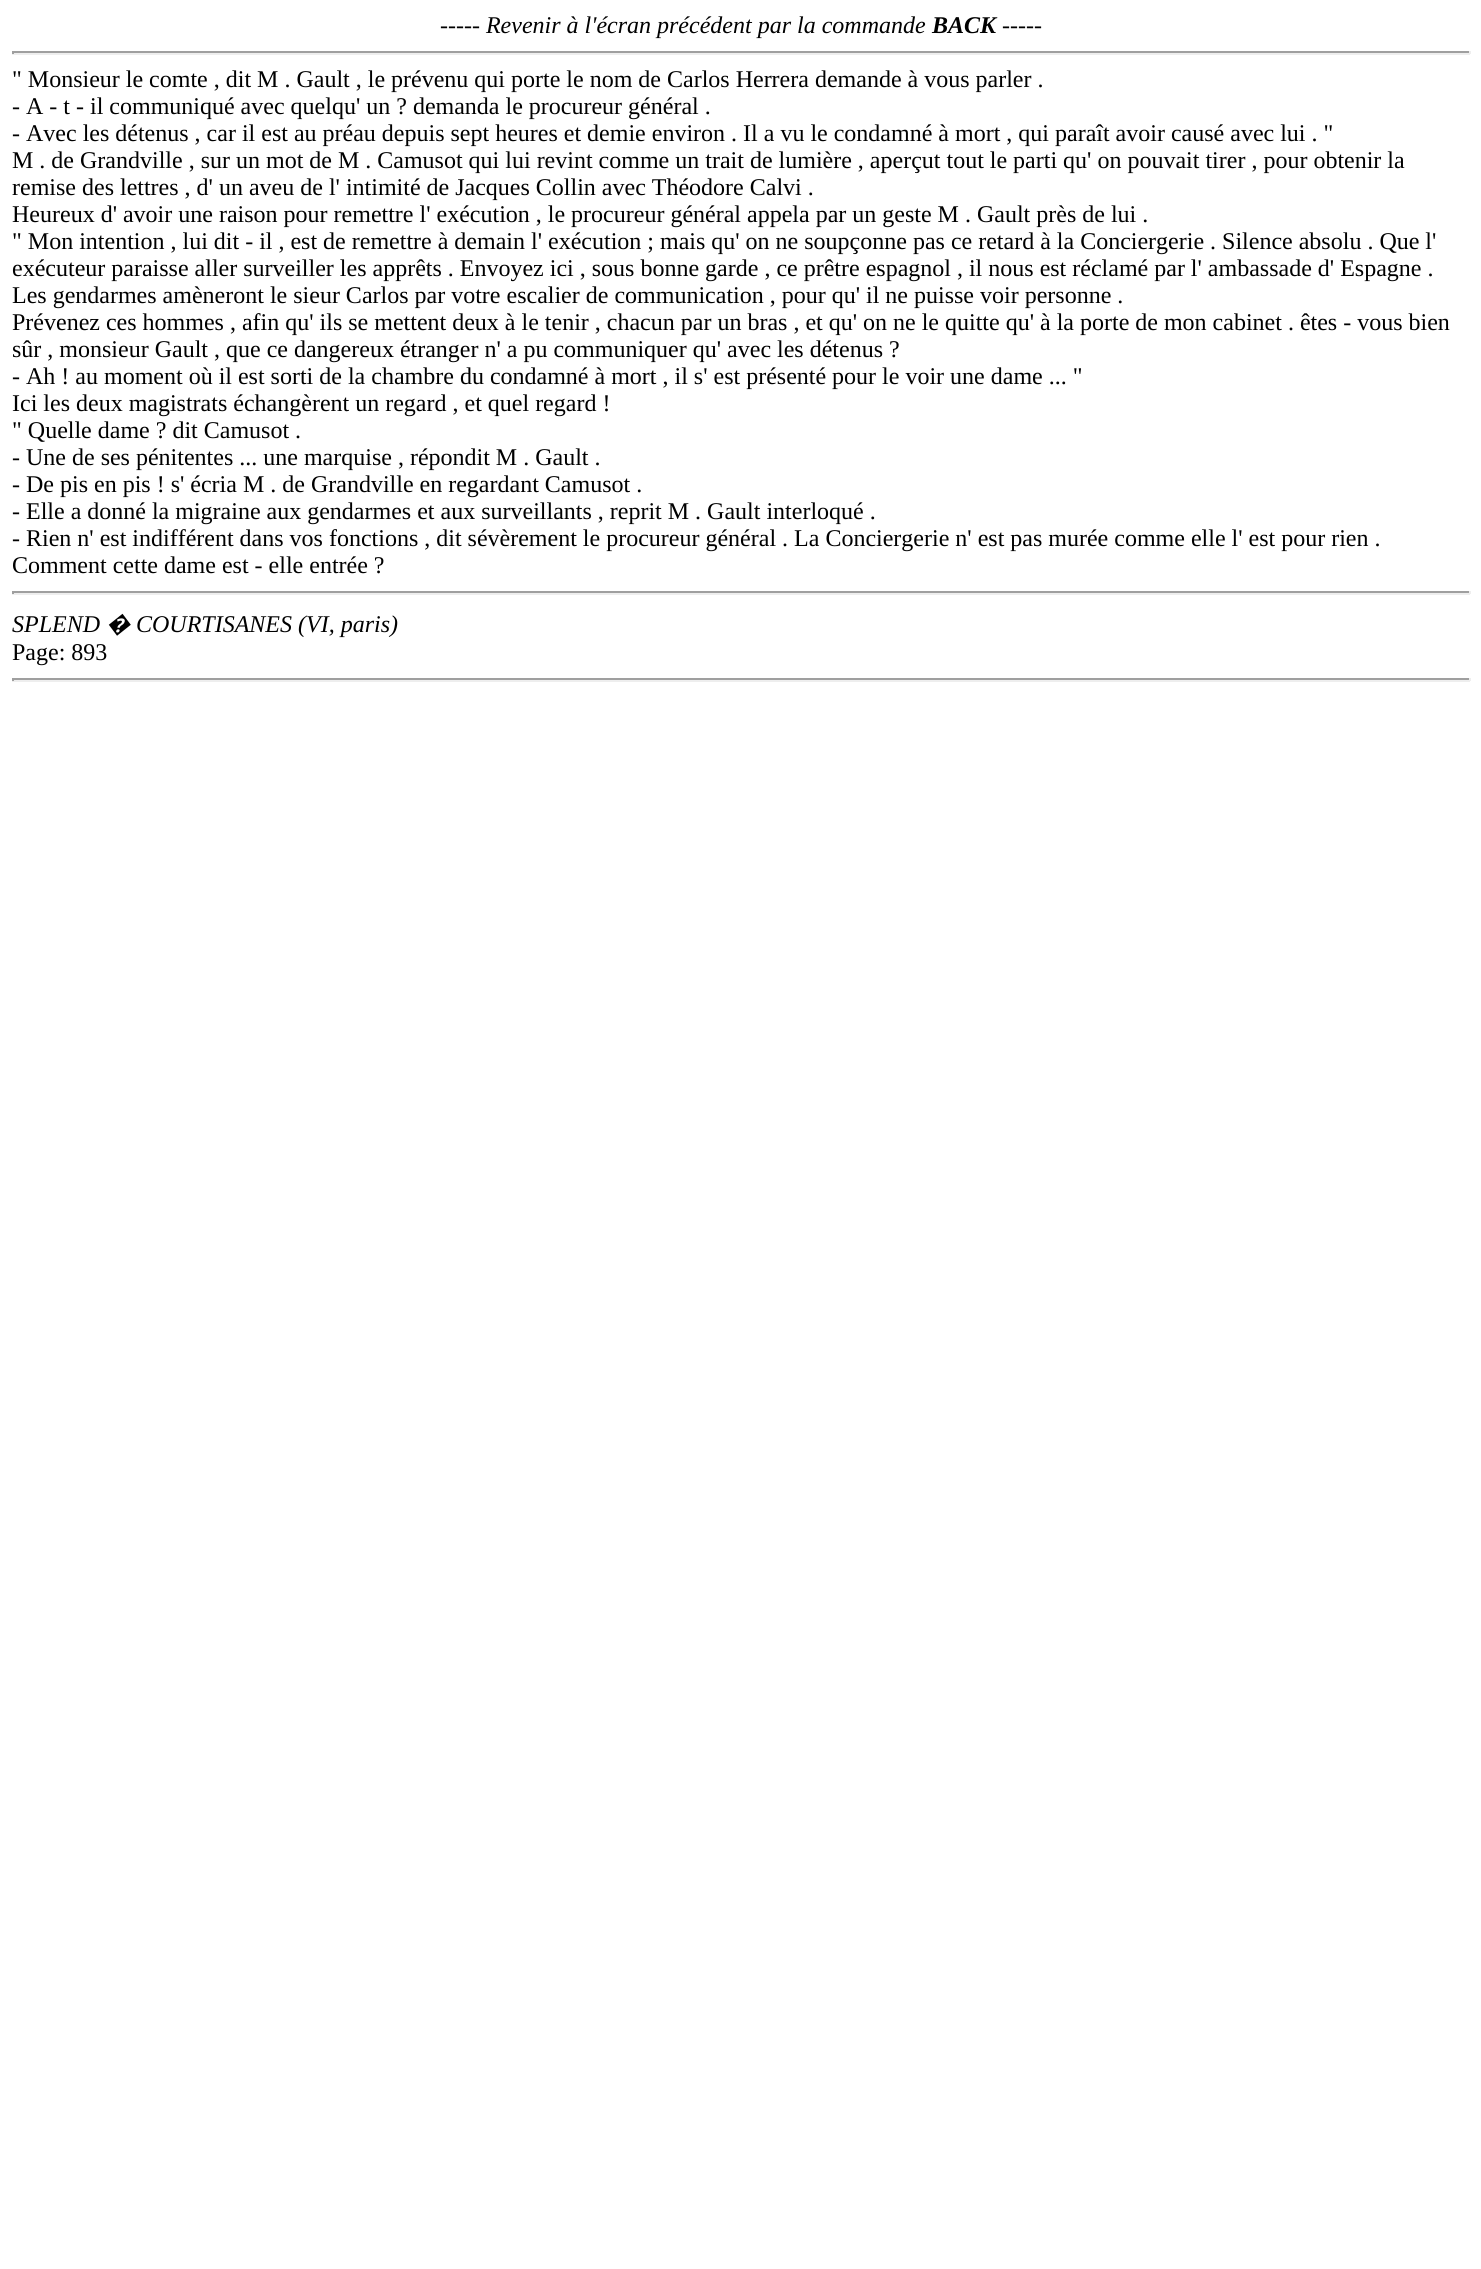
#include <cairo/cairo.h>
#include <math.h>
#include <stddef.h>

typedef struct { double x, y; const char *s; } line_t;
typedef struct { double x, y, w, h; unsigned color; } box_t;
static cairo_t *cr;

static void rgb(unsigned color)
{
	cairo_set_source_rgb(cr, (color >> 16) / 255.0, (color >> 8 & 255) / 255.0, (color & 255) / 255.0);
}

int main(void) {
	cairo_surface_t *surface = cairo_image_surface_create(CAIRO_FORMAT_RGB24, 1481, 2269);
	cr = cairo_create(surface);
	cairo_font_options_t *options = cairo_font_options_create();
	cairo_font_options_set_hint_metrics(options, CAIRO_HINT_METRICS_OFF);
	cairo_font_options_set_hint_style(options, CAIRO_HINT_STYLE_NONE);
	cairo_set_font_options(cr, options);
	cairo_set_miter_limit(cr, 4);
	rgb(0xffffff);
	cairo_paint(cr);
	{
		static const box_t items[] = {
			{12, 51, 1458, 2, 0x9f9f9f},
			{1469, 51, 2, 3, 0xeeeeee},
			{12, 53, 1458, 2, 0xeeeeee},
			{12, 51, 2, 3, 0x9f9f9f},
			{12, 591, 1458, 2, 0x9f9f9f},
			{1469, 591, 2, 3, 0xeeeeee},
			{12, 593, 1458, 2, 0xeeeeee},
			{12, 591, 2, 3, 0x9f9f9f},
			{12, 678, 1458, 2, 0x9f9f9f},
			{1469, 678, 2, 3, 0xeeeeee},
			{12, 680, 1458, 2, 0xeeeeee},
			{12, 678, 2, 3, 0x9f9f9f},
		};
		for (size_t i = 0; i < sizeof items / sizeof *items; i++) {
			rgb(items[i].color);
			cairo_rectangle(cr, items[i].x, items[i].y, items[i].w, items[i].h);
			cairo_fill(cr);
		}
	}
	cairo_select_font_face(cr, "Liberation Serif", CAIRO_FONT_SLANT_ITALIC, CAIRO_FONT_WEIGHT_NORMAL);
	cairo_set_font_size(cr, 24);
	rgb(0x000000);
	cairo_move_to(cr, 440, 33);
	cairo_show_text(cr, "----- Revenir à l'écran précédent par la commande");
	cairo_select_font_face(cr, "Liberation Serif", CAIRO_FONT_SLANT_ITALIC, CAIRO_FONT_WEIGHT_BOLD);
	cairo_move_to(cr, 932, 33);
	cairo_show_text(cr, "BACK");
	cairo_select_font_face(cr, "Liberation Serif", CAIRO_FONT_SLANT_ITALIC, CAIRO_FONT_WEIGHT_NORMAL);
	cairo_move_to(cr, 1002, 33);
	cairo_show_text(cr, "-----");
	cairo_select_font_face(cr, "Liberation Serif", CAIRO_FONT_SLANT_NORMAL, CAIRO_FONT_WEIGHT_NORMAL);
	{
		static const line_t items[] = {
			{12, 87, "\" Monsieur le comte , dit M . Gault , le prévenu qui porte le nom de Carlos Herrera demande à vous parler ."},
			{12, 114, "- A - t - il communiqué avec quelqu' un ? demanda le procureur général ."},
			{12, 141, "- Avec les détenus , car il est au préau depuis sept heures et demie environ . Il a vu le condamné à mort , qui paraît avoir causé avec lui . \""},
			{12, 168, "M . de Grandville , sur un mot de M . Camusot qui lui revint comme un trait de lumière , aperçut tout le parti qu' on pouvait tirer , pour obtenir la"},
			{12, 195, "remise des lettres , d' un aveu de l' intimité de Jacques Collin avec Théodore Calvi ."},
			{12, 222, "Heureux d' avoir une raison pour remettre l' exécution , le procureur général appela par un geste M . Gault près de lui ."},
			{12, 249, "\" Mon intention , lui dit - il , est de remettre à demain l' exécution ; mais qu' on ne soupçonne pas ce retard à la Conciergerie . Silence absolu . Que l'"},
			{12, 276, "exécuteur paraisse aller surveiller les apprêts . Envoyez ici , sous bonne garde , ce prêtre espagnol , il nous est réclamé par l' ambassade d' Espagne ."},
			{12, 303, "Les gendarmes amèneront le sieur Carlos par votre escalier de communication , pour qu' il ne puisse voir personne ."},
			{12, 330, "Prévenez ces hommes , afin qu' ils se mettent deux à le tenir , chacun par un bras , et qu' on ne le quitte qu' à la porte de mon cabinet . êtes - vous bien"},
			{12, 357, "sûr , monsieur Gault , que ce dangereux étranger n' a pu communiquer qu' avec les détenus ?"},
			{12, 384, "- Ah ! au moment où il est sorti de la chambre du condamné à mort , il s' est présenté pour le voir une dame ... \""},
			{12, 411, "Ici les deux magistrats échangèrent un regard , et quel regard !"},
			{12, 438, "\" Quelle dame ? dit Camusot ."},
			{12, 465, "- Une de ses pénitentes ... une marquise , répondit M . Gault ."},
			{12, 492, "- De pis en pis ! s' écria M . de Grandville en regardant Camusot ."},
			{12, 519, "- Elle a donné la migraine aux gendarmes et aux surveillants , reprit M . Gault interloqué ."},
			{12, 546, "- Rien n' est indifférent dans vos fonctions , dit sévèrement le procureur général . La Conciergerie n' est pas murée comme elle l' est pour rien ."},
			{12, 573, "Comment cette dame est - elle entrée ?"},
		};
		for (size_t i = 0; i < sizeof items / sizeof *items; i++) {
			cairo_move_to(cr, items[i].x, items[i].y);
			cairo_show_text(cr, items[i].s);
		}
	}
	cairo_select_font_face(cr, "Liberation Serif", CAIRO_FONT_SLANT_ITALIC, CAIRO_FONT_WEIGHT_NORMAL);
	cairo_move_to(cr, 12, 632);
	cairo_show_text(cr, "SPLEND");
	cairo_select_font_face(cr, "Noto Sans", CAIRO_FONT_SLANT_ITALIC, CAIRO_FONT_WEIGHT_NORMAL);
	cairo_move_to(cr, 106, 632);
	cairo_show_text(cr, "�");
	cairo_select_font_face(cr, "Liberation Serif", CAIRO_FONT_SLANT_ITALIC, CAIRO_FONT_WEIGHT_NORMAL);
	cairo_move_to(cr, 136, 632);
	cairo_show_text(cr, "COURTISANES (VI, paris)");
	cairo_select_font_face(cr, "Liberation Serif", CAIRO_FONT_SLANT_NORMAL, CAIRO_FONT_WEIGHT_NORMAL);
	cairo_move_to(cr, 12, 660);
	cairo_show_text(cr, "Page: 893");
	cairo_surface_write_to_png(surface, "page.png");
	cairo_font_options_destroy(options);
	cairo_destroy(cr);
	cairo_surface_destroy(surface);
	return 0;
}
